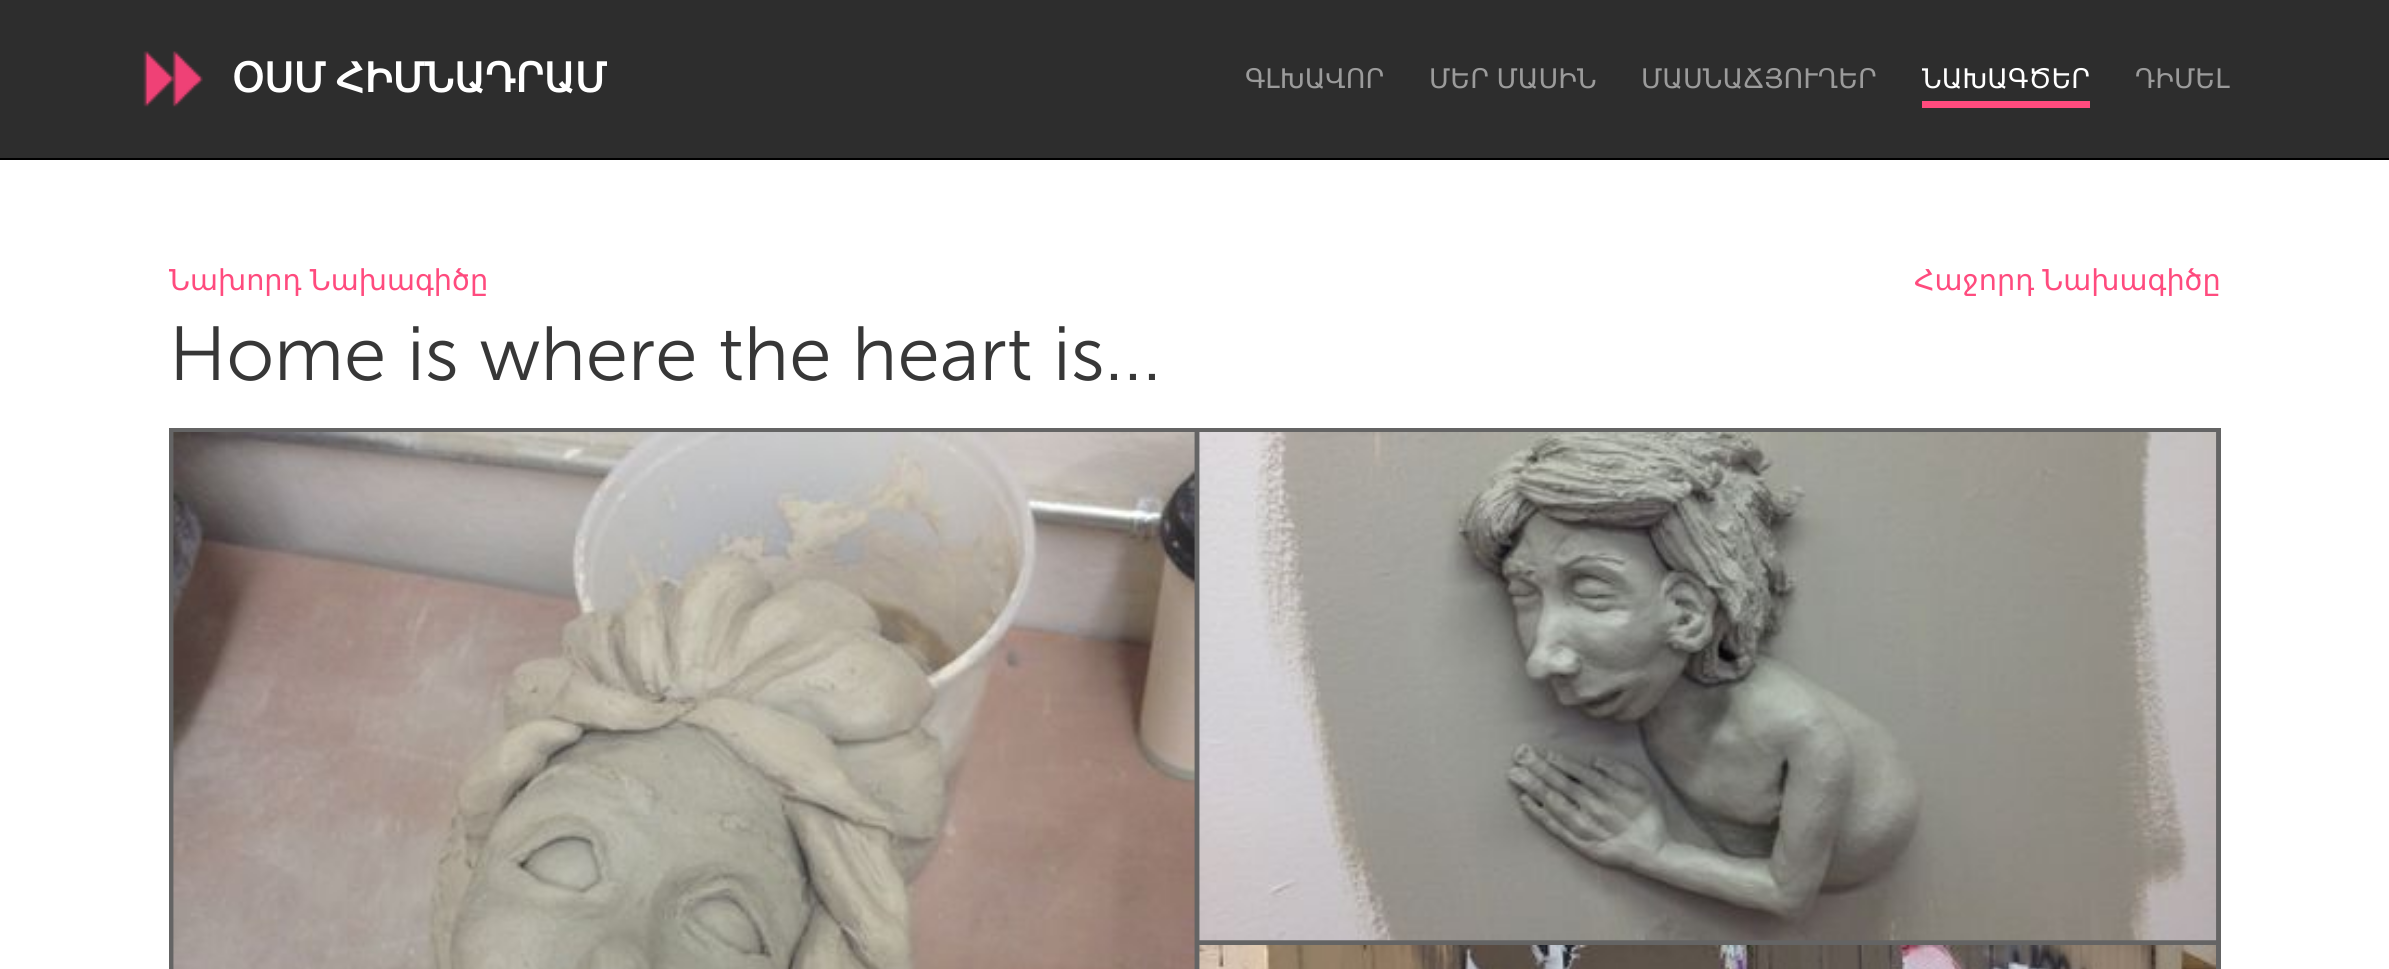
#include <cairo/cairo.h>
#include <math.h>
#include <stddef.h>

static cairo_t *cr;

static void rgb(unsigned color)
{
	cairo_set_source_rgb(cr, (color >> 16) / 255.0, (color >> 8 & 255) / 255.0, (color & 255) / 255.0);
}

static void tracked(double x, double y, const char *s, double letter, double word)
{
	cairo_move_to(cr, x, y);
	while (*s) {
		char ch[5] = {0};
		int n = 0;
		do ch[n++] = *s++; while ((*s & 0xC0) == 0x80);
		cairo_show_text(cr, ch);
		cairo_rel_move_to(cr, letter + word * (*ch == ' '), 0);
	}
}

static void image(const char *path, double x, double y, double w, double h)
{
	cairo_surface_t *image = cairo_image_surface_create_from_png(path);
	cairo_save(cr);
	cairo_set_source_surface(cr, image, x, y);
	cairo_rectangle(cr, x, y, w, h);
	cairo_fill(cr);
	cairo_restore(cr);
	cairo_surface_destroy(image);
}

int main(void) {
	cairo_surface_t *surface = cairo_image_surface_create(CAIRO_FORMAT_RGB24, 2389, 969);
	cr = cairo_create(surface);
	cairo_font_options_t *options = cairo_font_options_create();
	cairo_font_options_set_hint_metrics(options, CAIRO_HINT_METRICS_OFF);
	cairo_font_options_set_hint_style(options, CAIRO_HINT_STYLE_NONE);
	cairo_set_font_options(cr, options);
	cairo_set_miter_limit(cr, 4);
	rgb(0xffffff);
	cairo_paint(cr);
	rgb(0x2d2d2d);
	cairo_rectangle(cr, 0, 0, 2389, 158);
	cairo_fill(cr);
	rgb(0x000000);
	cairo_rectangle(cr, 0, 158, 2389, 2);
	cairo_fill(cr);
	image("img/1.png", 143, 51, 60, 56);
	rgb(0xff4b7e);
	cairo_rectangle(cr, 1922, 101, 168, 7);
	cairo_fill(cr);
	rgb(0x646464);
	cairo_rectangle(cr, 169, 428, 2052, 541);
	cairo_fill(cr);
	image("img/2.png", 173, 432, 1022, 537);
	image("img/3.png", 1199, 432, 1018, 509);
	image("img/4.png", 1199, 945, 1017, 24);
	cairo_select_font_face(cr, "DejaVu Sans", CAIRO_FONT_SLANT_NORMAL, CAIRO_FONT_WEIGHT_BOLD);
	cairo_set_font_size(cr, 40.5);
	rgb(0xffffff);
	tracked(232, 92, "ՕՍՄ ՀԻՄՆԱԴՐԱՄ", 0, -3);
	cairo_select_font_face(cr, "DejaVu Sans", CAIRO_FONT_SLANT_NORMAL, CAIRO_FONT_WEIGHT_NORMAL);
	cairo_set_font_size(cr, 27);
	rgb(0x9b9b9b);
	cairo_move_to(cr, 1245, 88);
	cairo_show_text(cr, "ԳԼԽԱՎՈՐ");
	tracked(1429, 88, "ՄԵՐ ՄԱՍԻՆ", 0, -1);
	cairo_move_to(cr, 1641, 88);
	cairo_show_text(cr, "ՄԱՍՆԱՃՅՈՒՂԵՐ");
	rgb(0xffffff);
	cairo_move_to(cr, 1922, 88);
	cairo_show_text(cr, "ՆԱԽԱԳԾԵՐ");
	rgb(0x9b9b9b);
	cairo_move_to(cr, 2135, 88);
	cairo_show_text(cr, "ԴԻՄԵԼ");
	cairo_set_font_size(cr, 28.75);
	rgb(0xff4b7e);
	tracked(169, 290, "Նախորդ Նախագիծը", 0, -1);
	tracked(1914, 290, "Հաջորդ Նախագիծը", 0, -1);
	cairo_select_font_face(cr, "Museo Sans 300 Light", CAIRO_FONT_SLANT_NORMAL, CAIRO_FONT_WEIGHT_NORMAL);
	cairo_set_font_size(cr, 76.5);
	rgb(0x373737);
	cairo_move_to(cr, 169, 380);
	cairo_show_text(cr, "Home is where the heart is...");
	cairo_surface_write_to_png(surface, "page.png");
	cairo_font_options_destroy(options);
	cairo_destroy(cr);
	cairo_surface_destroy(surface);
	return 0;
}
